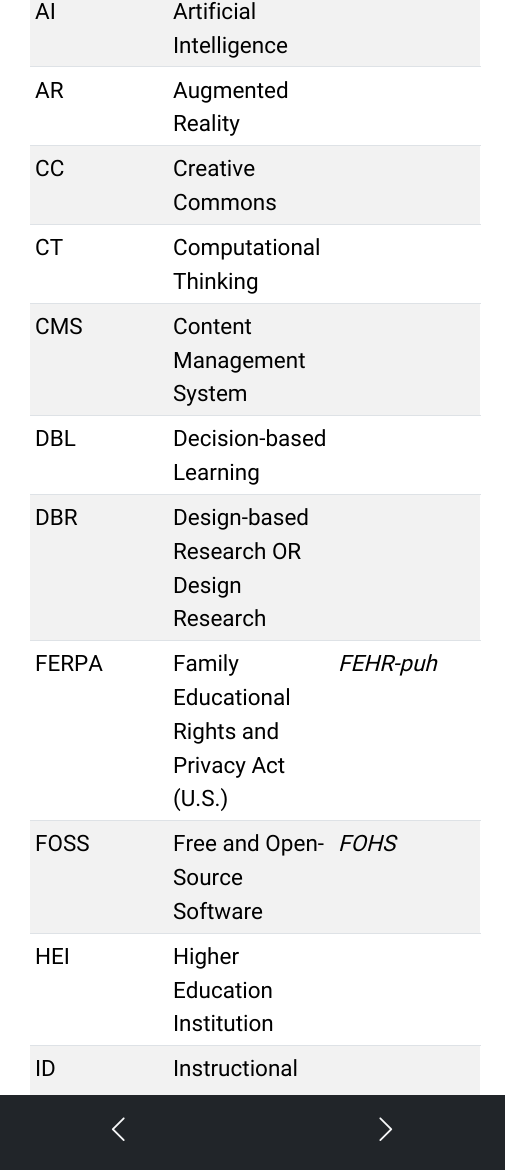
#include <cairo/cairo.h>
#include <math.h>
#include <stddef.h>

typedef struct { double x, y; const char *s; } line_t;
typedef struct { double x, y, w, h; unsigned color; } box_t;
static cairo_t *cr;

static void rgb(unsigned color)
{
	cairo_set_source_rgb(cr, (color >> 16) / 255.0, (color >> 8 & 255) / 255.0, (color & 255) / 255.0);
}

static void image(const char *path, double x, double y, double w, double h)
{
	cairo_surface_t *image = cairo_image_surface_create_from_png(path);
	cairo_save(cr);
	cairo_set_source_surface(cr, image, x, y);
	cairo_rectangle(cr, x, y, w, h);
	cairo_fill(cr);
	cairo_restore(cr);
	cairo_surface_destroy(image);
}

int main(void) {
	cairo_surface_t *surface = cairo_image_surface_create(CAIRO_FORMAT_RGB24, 505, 1170);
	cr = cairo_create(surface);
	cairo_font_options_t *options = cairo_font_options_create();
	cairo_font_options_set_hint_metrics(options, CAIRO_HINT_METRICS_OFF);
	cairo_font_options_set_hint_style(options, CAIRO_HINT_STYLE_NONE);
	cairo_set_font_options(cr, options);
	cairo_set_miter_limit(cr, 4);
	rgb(0xffffff);
	cairo_paint(cr);
	{
		static const box_t items[] = {
			{30, 0, 450, 66, 0xf2f2f2},
			{30, 66, 451, 1, 0xdee2e6},
			{30, 145, 451, 1, 0xdee2e6},
			{30, 146, 450, 78, 0xf2f2f2},
			{30, 224, 451, 1, 0xdee2e6},
			{30, 303, 451, 1, 0xdee2e6},
			{30, 304, 450, 111, 0xf2f2f2},
			{30, 415, 451, 1, 0xdee2e6},
			{30, 494, 451, 1, 0xdee2e6},
			{30, 495, 450, 145, 0xf2f2f2},
			{30, 640, 451, 1, 0xdee2e6},
			{30, 820, 451, 1, 0xdee2e6},
			{30, 821, 450, 112, 0xf2f2f2},
			{30, 933, 451, 1, 0xdee2e6},
			{30, 1045, 451, 1, 0xdee2e6},
			{30, 1046, 450, 49, 0xf2f2f2},
			{0, 1095, 505, 75, 0x212529},
		};
		for (size_t i = 0; i < sizeof items / sizeof *items; i++) {
			rgb(items[i].color);
			cairo_rectangle(cr, items[i].x, items[i].y, items[i].w, items[i].h);
			cairo_fill(cr);
		}
	}
	image("img/1.png", 111, 1117, 14, 24);
	image("img/2.png", 379, 1117, 14, 24);
	cairo_select_font_face(cr, "Roboto", CAIRO_FONT_SLANT_NORMAL, CAIRO_FONT_WEIGHT_NORMAL);
	cairo_set_font_size(cr, 22.5);
	rgb(0x000000);
	{
		static const line_t items[] = {
			{35, 19, "AI"},
			{173, 19, "Artificial"},
			{173, 53, "Intelligence"},
			{35, 98, "AR"},
			{173, 98, "Augmented"},
			{173, 131, "Reality"},
			{35, 176, "CC"},
			{173, 176, "Creative"},
			{173, 210, "Commons"},
			{35, 255, "CT"},
			{173, 255, "Computational"},
			{173, 289, "Thinking"},
			{35, 334, "CMS"},
			{173, 334, "Content"},
			{173, 368, "Management"},
			{173, 401, "System"},
			{35, 446, "DBL"},
			{173, 446, "Decision-based"},
			{173, 480, "Learning"},
			{35, 525, "DBR"},
			{173, 525, "Design-based"},
			{173, 559, "Research OR"},
			{173, 593, "Design"},
			{173, 626, "Research"},
			{35, 671, "FERPA"},
			{173, 671, "Family"},
			{173, 705, "Educational"},
			{173, 739, "Rights and"},
			{173, 773, "Privacy Act"},
			{173, 806, "(U.S.)"},
		};
		for (size_t i = 0; i < sizeof items / sizeof *items; i++) {
			cairo_move_to(cr, items[i].x, items[i].y);
			cairo_show_text(cr, items[i].s);
		}
	}
	cairo_select_font_face(cr, "Roboto", CAIRO_FONT_SLANT_ITALIC, CAIRO_FONT_WEIGHT_NORMAL);
	cairo_move_to(cr, 338, 671);
	cairo_show_text(cr, "FEHR-puh");
	cairo_select_font_face(cr, "Roboto", CAIRO_FONT_SLANT_NORMAL, CAIRO_FONT_WEIGHT_NORMAL);
	{
		static const line_t items[] = {
			{35, 851, "FOSS"},
			{173, 851, "Free and Open-"},
			{173, 885, "Source"},
			{173, 919, "Software"},
		};
		for (size_t i = 0; i < sizeof items / sizeof *items; i++) {
			cairo_move_to(cr, items[i].x, items[i].y);
			cairo_show_text(cr, items[i].s);
		}
	}
	cairo_select_font_face(cr, "Roboto", CAIRO_FONT_SLANT_ITALIC, CAIRO_FONT_WEIGHT_NORMAL);
	cairo_move_to(cr, 338, 851);
	cairo_show_text(cr, "FOHS");
	cairo_select_font_face(cr, "Roboto", CAIRO_FONT_SLANT_NORMAL, CAIRO_FONT_WEIGHT_NORMAL);
	{
		static const line_t items[] = {
			{35, 964, "HEI"},
			{173, 964, "Higher"},
			{173, 998, "Education"},
			{173, 1031, "Institution"},
			{35, 1076, "ID"},
			{173, 1076, "Instructional"},
		};
		for (size_t i = 0; i < sizeof items / sizeof *items; i++) {
			cairo_move_to(cr, items[i].x, items[i].y);
			cairo_show_text(cr, items[i].s);
		}
	}
	cairo_surface_write_to_png(surface, "page.png");
	cairo_font_options_destroy(options);
	cairo_destroy(cr);
	cairo_surface_destroy(surface);
	return 0;
}
